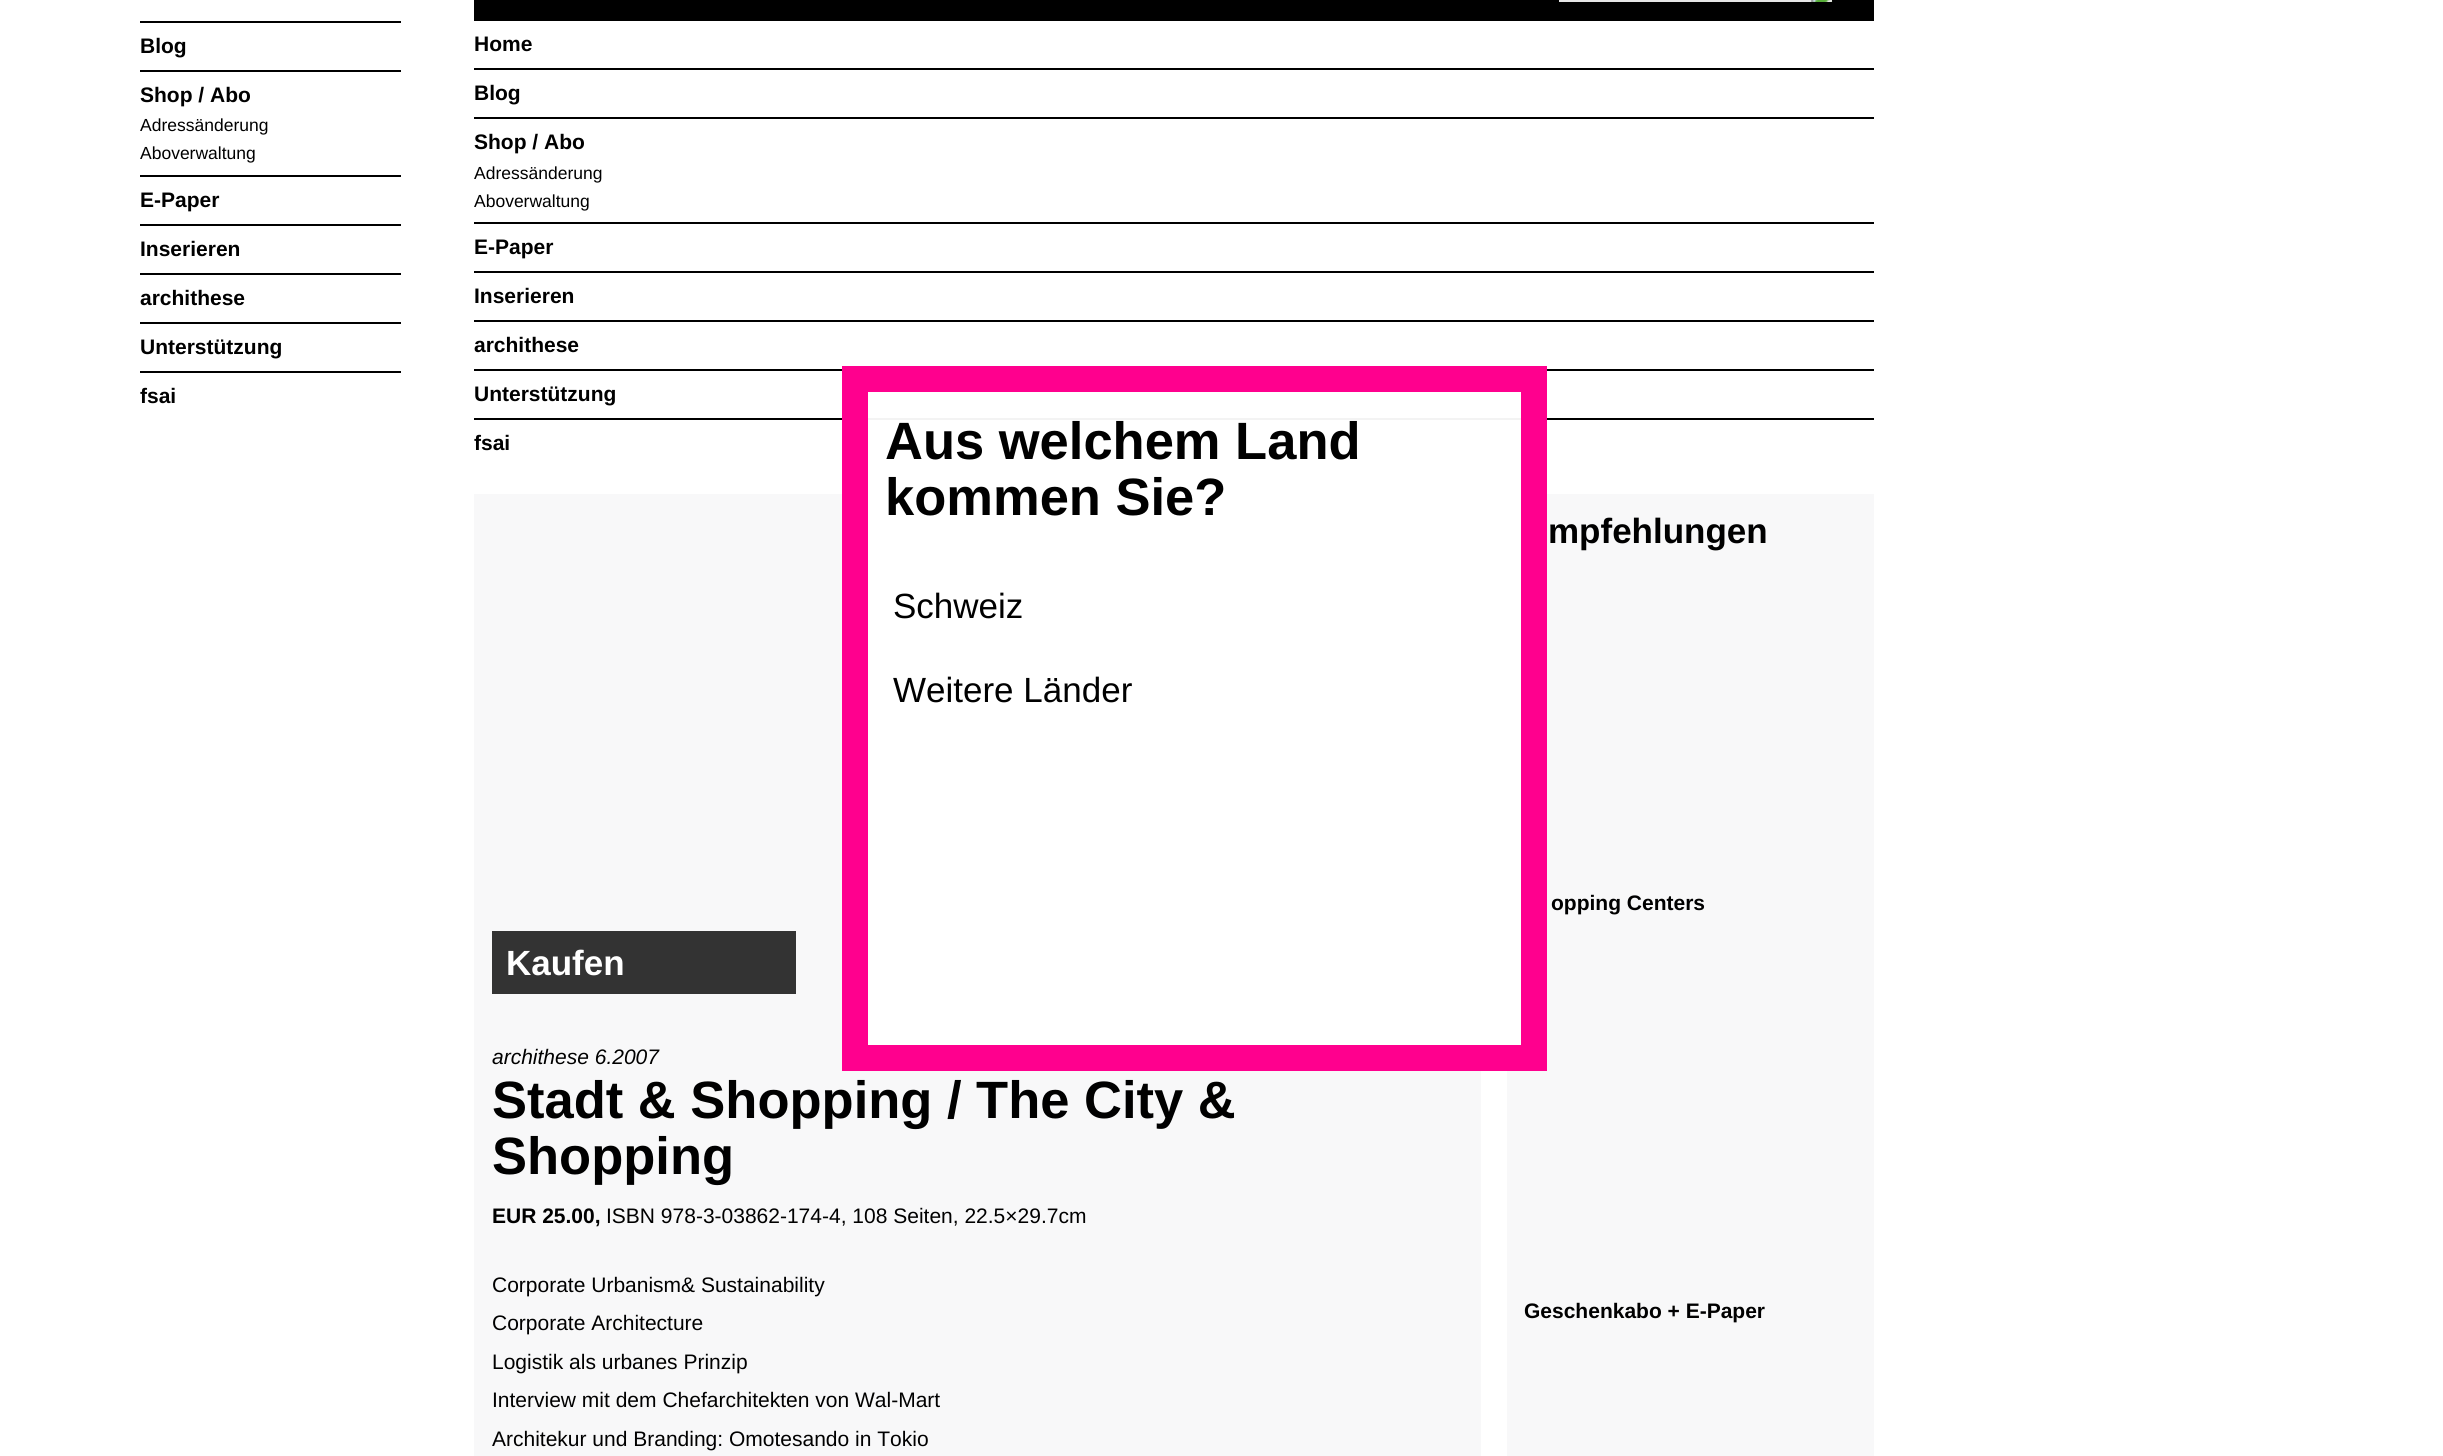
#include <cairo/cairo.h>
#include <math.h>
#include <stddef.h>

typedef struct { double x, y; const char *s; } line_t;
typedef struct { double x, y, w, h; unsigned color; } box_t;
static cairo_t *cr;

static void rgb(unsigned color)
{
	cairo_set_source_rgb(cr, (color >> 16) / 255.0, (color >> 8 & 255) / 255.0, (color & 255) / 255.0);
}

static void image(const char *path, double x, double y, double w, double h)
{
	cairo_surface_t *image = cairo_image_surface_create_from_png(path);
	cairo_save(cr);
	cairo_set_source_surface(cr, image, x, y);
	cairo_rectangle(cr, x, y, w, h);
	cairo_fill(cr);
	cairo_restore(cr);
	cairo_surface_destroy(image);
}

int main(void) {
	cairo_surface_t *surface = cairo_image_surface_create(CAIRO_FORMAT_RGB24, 2443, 1456);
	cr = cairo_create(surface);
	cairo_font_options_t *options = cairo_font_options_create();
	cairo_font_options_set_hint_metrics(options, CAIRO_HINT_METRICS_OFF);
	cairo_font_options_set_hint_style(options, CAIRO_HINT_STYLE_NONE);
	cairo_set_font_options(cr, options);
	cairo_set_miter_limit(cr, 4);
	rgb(0xffffff);
	cairo_paint(cr);
	{
		static const box_t items[] = {
			{140, 21, 261, 2, 0x000000},
			{140, 70, 261, 2, 0x000000},
			{140, 175, 261, 2, 0x000000},
			{140, 224, 261, 2, 0x000000},
			{140, 273, 261, 2, 0x000000},
			{140, 322, 261, 2, 0x000000},
			{140, 371, 261, 2, 0x000000},
			{474, 0, 1400, 21, 0x000000},
			{1559, 0, 273, 2, 0xe6e6e6},
		};
		for (size_t i = 0; i < sizeof items / sizeof *items; i++) {
			rgb(items[i].color);
			cairo_rectangle(cr, items[i].x, items[i].y, items[i].w, items[i].h);
			cairo_fill(cr);
		}
	}
	image("img/1.png", 1811, 0, 22, 2);
	rgb(0x000000);
	cairo_rectangle(cr, 474, 68, 1400, 2);
	cairo_fill(cr);
	cairo_rectangle(cr, 474, 117, 1400, 2);
	cairo_fill(cr);
	cairo_rectangle(cr, 474, 222, 1400, 2);
	cairo_fill(cr);
	cairo_rectangle(cr, 474, 271, 1400, 2);
	cairo_fill(cr);
	cairo_rectangle(cr, 474, 320, 1400, 2);
	cairo_fill(cr);
	cairo_rectangle(cr, 474, 369, 1400, 2);
	cairo_fill(cr);
	cairo_rectangle(cr, 474, 418, 1400, 2);
	cairo_fill(cr);
	rgb(0xf8f8f9);
	cairo_rectangle(cr, 474, 494, 1007, 962);
	cairo_fill(cr);
	rgb(0x333333);
	cairo_rectangle(cr, 492, 931, 304, 63);
	cairo_fill(cr);
	rgb(0xf8f8f9);
	cairo_rectangle(cr, 1507, 494, 367, 962);
	cairo_fill(cr);
	cairo_set_source_rgba(cr, 1, 1, 1, 0.95);
	cairo_rectangle(cr, 868, 418, 653, 627);
	cairo_fill(cr);
	cairo_rectangle(cr, 855, 379, 679, 679);
	rgb(0xff008e);
	cairo_set_line_width(cr, 26);
	cairo_stroke(cr);
	cairo_select_font_face(cr, "Liberation Sans", CAIRO_FONT_SLANT_NORMAL, CAIRO_FONT_WEIGHT_BOLD);
	cairo_set_font_size(cr, 21);
	rgb(0x000000);
	cairo_move_to(cr, 140, 53);
	cairo_show_text(cr, "Blog");
	cairo_move_to(cr, 140, 102);
	cairo_show_text(cr, "Shop / Abo");
	cairo_select_font_face(cr, "Liberation Sans", CAIRO_FONT_SLANT_NORMAL, CAIRO_FONT_WEIGHT_NORMAL);
	cairo_set_font_size(cr, 17.5);
	cairo_move_to(cr, 140, 131);
	cairo_show_text(cr, "Adressänderung");
	cairo_move_to(cr, 140, 159);
	cairo_show_text(cr, "Aboverwaltung");
	cairo_select_font_face(cr, "Liberation Sans", CAIRO_FONT_SLANT_NORMAL, CAIRO_FONT_WEIGHT_BOLD);
	cairo_set_font_size(cr, 21);
	{
		static const line_t items[] = {
			{140, 207, "E-Paper"},
			{140, 256, "Inserieren"},
			{140, 305, "archithese"},
			{140, 354, "Unterstützung"},
			{140, 403, "fsai"},
			{474, 51, "Home"},
			{474, 100, "Blog"},
			{474, 149, "Shop / Abo"},
		};
		for (size_t i = 0; i < sizeof items / sizeof *items; i++) {
			cairo_move_to(cr, items[i].x, items[i].y);
			cairo_show_text(cr, items[i].s);
		}
	}
	cairo_select_font_face(cr, "Liberation Sans", CAIRO_FONT_SLANT_NORMAL, CAIRO_FONT_WEIGHT_NORMAL);
	cairo_set_font_size(cr, 17.5);
	cairo_move_to(cr, 474, 179);
	cairo_show_text(cr, "Adressänderung");
	cairo_move_to(cr, 474, 207);
	cairo_show_text(cr, "Aboverwaltung");
	cairo_select_font_face(cr, "Liberation Sans", CAIRO_FONT_SLANT_NORMAL, CAIRO_FONT_WEIGHT_BOLD);
	cairo_set_font_size(cr, 21);
	{
		static const line_t items[] = {
			{474, 254, "E-Paper"},
			{474, 303, "Inserieren"},
			{474, 352, "archithese"},
			{474, 401, "Unterstützung"},
			{474, 450, "fsai"},
		};
		for (size_t i = 0; i < sizeof items / sizeof *items; i++) {
			cairo_move_to(cr, items[i].x, items[i].y);
			cairo_show_text(cr, items[i].s);
		}
	}
	cairo_set_font_size(cr, 35);
	rgb(0xffffff);
	cairo_move_to(cr, 506, 975);
	cairo_show_text(cr, "Kaufen");
	cairo_select_font_face(cr, "Liberation Sans", CAIRO_FONT_SLANT_ITALIC, CAIRO_FONT_WEIGHT_NORMAL);
	cairo_set_font_size(cr, 21);
	rgb(0x000000);
	cairo_move_to(cr, 492, 1064);
	cairo_show_text(cr, "archithese 6.2007");
	cairo_select_font_face(cr, "Liberation Sans", CAIRO_FONT_SLANT_NORMAL, CAIRO_FONT_WEIGHT_BOLD);
	cairo_set_font_size(cr, 52.5);
	cairo_move_to(cr, 492, 1118);
	cairo_show_text(cr, "Stadt & Shopping / The City &");
	cairo_move_to(cr, 492, 1174);
	cairo_show_text(cr, "Shopping");
	cairo_set_font_size(cr, 21);
	cairo_move_to(cr, 492, 1223);
	cairo_show_text(cr, "EUR 25.00,");
	cairo_select_font_face(cr, "Liberation Sans", CAIRO_FONT_SLANT_NORMAL, CAIRO_FONT_WEIGHT_NORMAL);
	{
		static const line_t items[] = {
			{606, 1223, "ISBN 978-3-03862-174-4, 108 Seiten, 22.5×29.7cm"},
			{492, 1292, "Corporate Urbanism& Sustainability"},
			{492, 1330, "Corporate Architecture"},
			{492, 1369, "Logistik als urbanes Prinzip"},
			{492, 1407, "Interview mit dem Chefarchitekten von Wal-Mart"},
			{492, 1446, "Architekur und Branding: Omotesando in Tokio"},
		};
		for (size_t i = 0; i < sizeof items / sizeof *items; i++) {
			cairo_move_to(cr, items[i].x, items[i].y);
			cairo_show_text(cr, items[i].s);
		}
	}
	cairo_select_font_face(cr, "Liberation Sans", CAIRO_FONT_SLANT_NORMAL, CAIRO_FONT_WEIGHT_BOLD);
	cairo_set_font_size(cr, 35);
	cairo_move_to(cr, 1548, 543);
	cairo_show_text(cr, "mpfehlungen");
	cairo_set_font_size(cr, 21);
	cairo_move_to(cr, 1551, 910);
	cairo_show_text(cr, "opping Centers");
	cairo_move_to(cr, 1524, 1318);
	cairo_show_text(cr, "Geschenkabo + E-Paper");
	cairo_set_font_size(cr, 52.5);
	cairo_move_to(cr, 885, 459);
	cairo_show_text(cr, "Aus welchem Land");
	cairo_move_to(cr, 885, 515);
	cairo_show_text(cr, "kommen Sie?");
	cairo_select_font_face(cr, "Liberation Sans", CAIRO_FONT_SLANT_NORMAL, CAIRO_FONT_WEIGHT_NORMAL);
	cairo_set_font_size(cr, 35);
	cairo_move_to(cr, 893, 618);
	cairo_show_text(cr, "Schweiz");
	cairo_move_to(cr, 893, 702);
	cairo_show_text(cr, "Weitere Länder");
	cairo_surface_write_to_png(surface, "page.png");
	cairo_font_options_destroy(options);
	cairo_destroy(cr);
	cairo_surface_destroy(surface);
	return 0;
}
